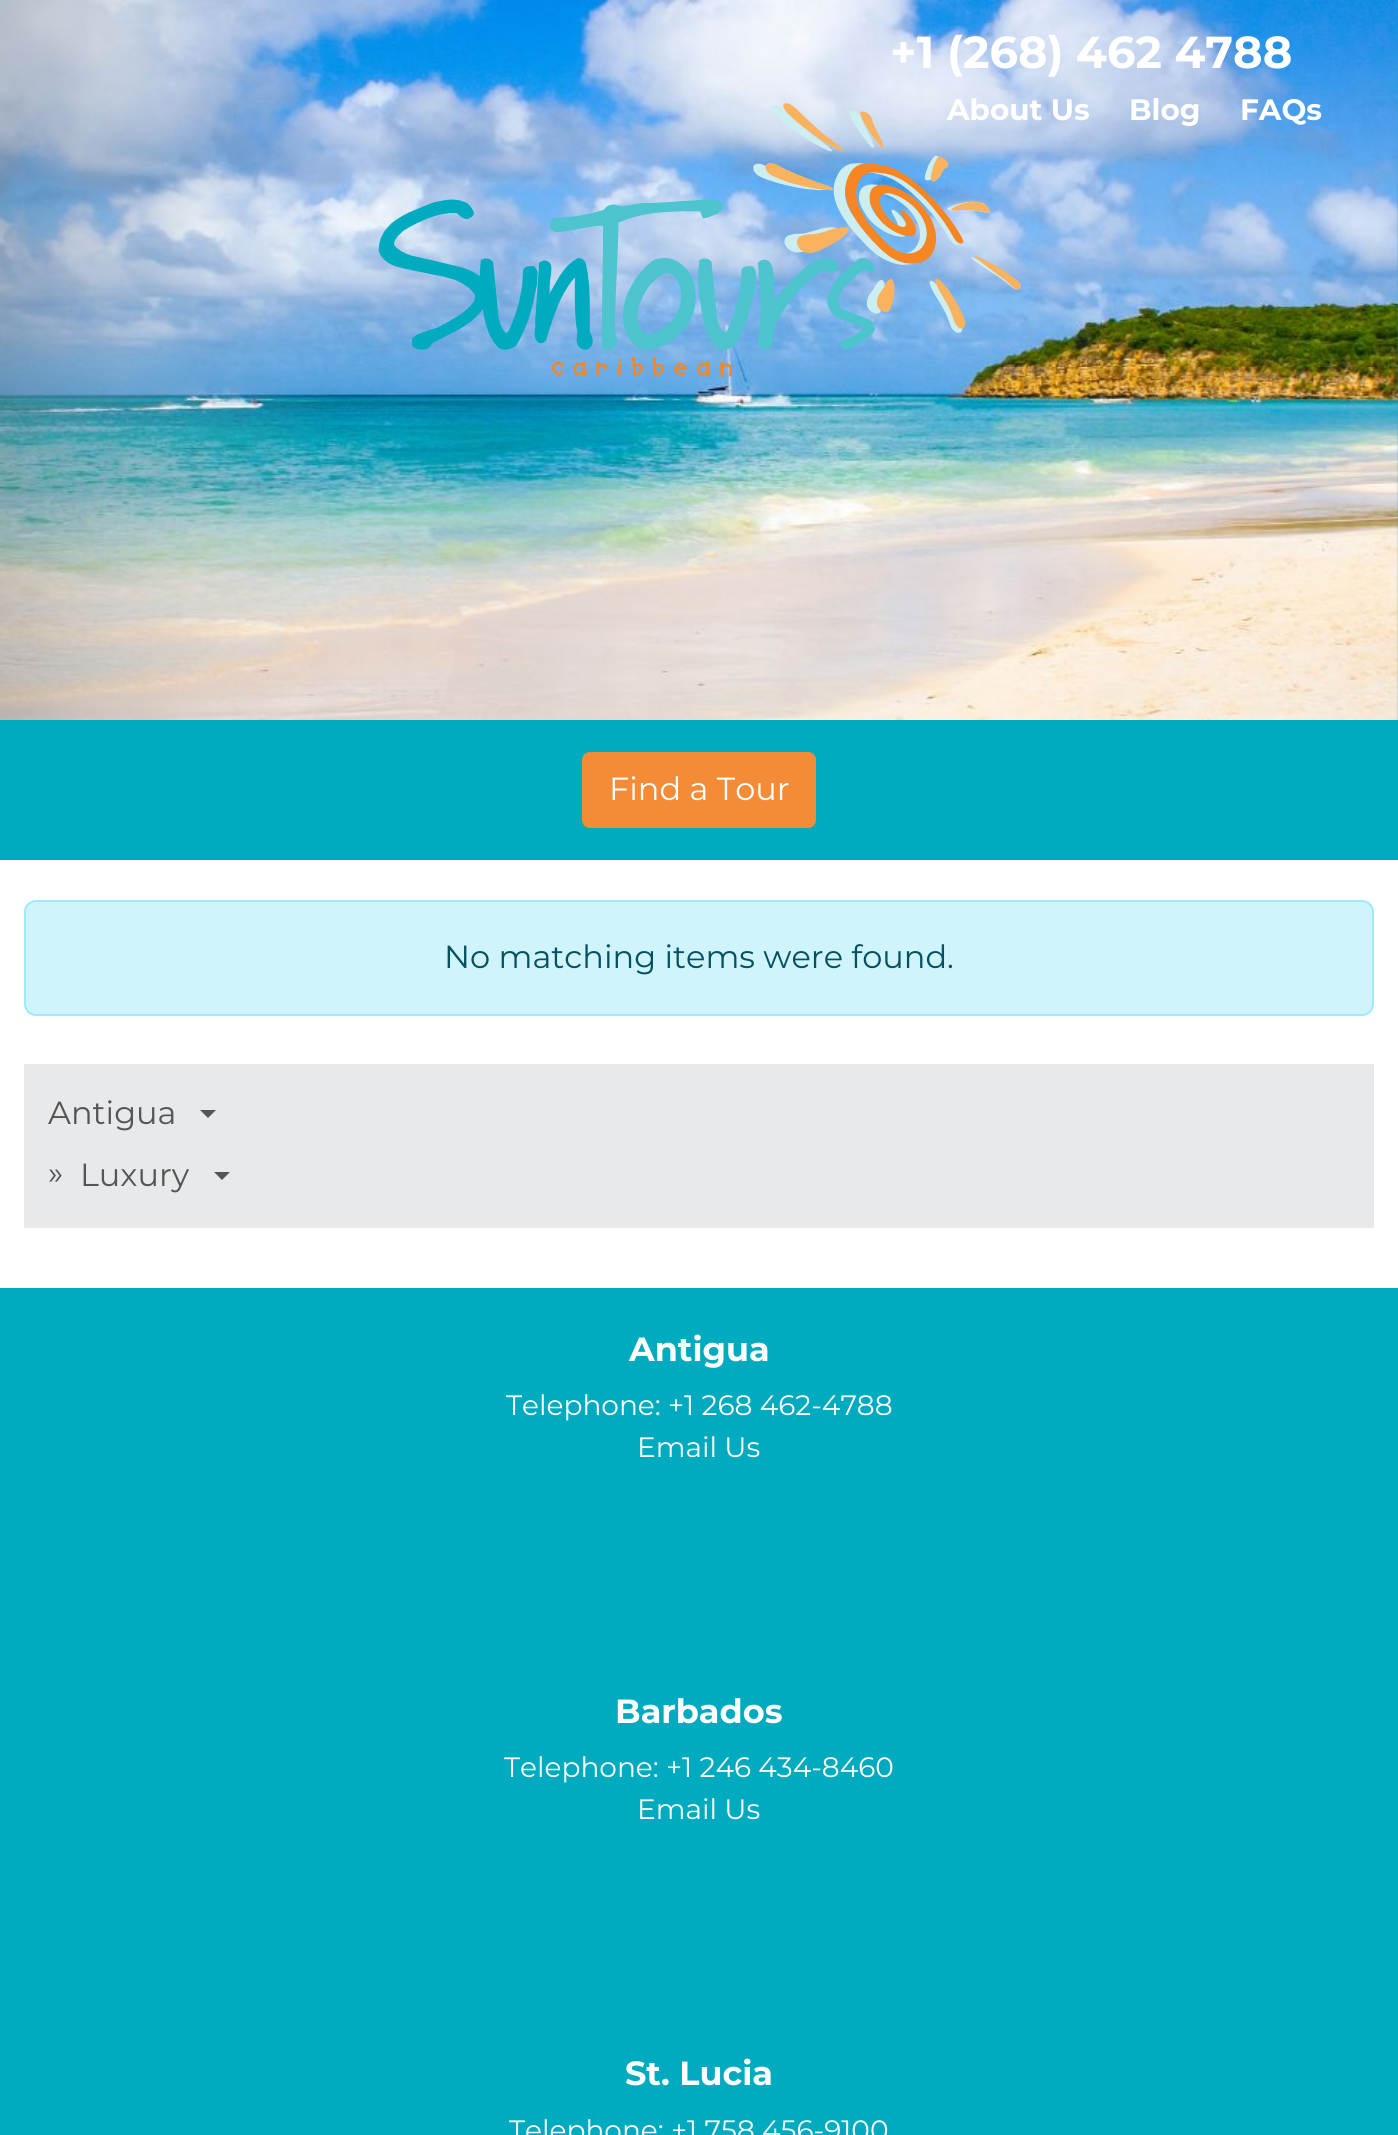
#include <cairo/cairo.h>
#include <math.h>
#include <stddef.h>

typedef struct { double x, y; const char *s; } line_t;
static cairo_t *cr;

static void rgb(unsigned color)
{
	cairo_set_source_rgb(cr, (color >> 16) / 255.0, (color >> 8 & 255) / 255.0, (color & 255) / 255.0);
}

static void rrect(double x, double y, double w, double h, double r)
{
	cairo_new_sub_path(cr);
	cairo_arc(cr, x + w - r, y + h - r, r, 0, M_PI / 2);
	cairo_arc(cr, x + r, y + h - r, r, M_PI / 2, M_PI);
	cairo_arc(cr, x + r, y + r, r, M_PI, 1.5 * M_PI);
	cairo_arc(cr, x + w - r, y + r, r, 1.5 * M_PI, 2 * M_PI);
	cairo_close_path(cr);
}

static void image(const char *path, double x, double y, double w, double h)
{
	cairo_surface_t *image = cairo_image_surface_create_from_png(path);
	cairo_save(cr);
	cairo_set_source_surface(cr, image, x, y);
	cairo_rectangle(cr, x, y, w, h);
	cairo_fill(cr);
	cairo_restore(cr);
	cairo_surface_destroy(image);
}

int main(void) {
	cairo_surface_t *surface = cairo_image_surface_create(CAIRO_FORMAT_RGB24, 1398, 2135);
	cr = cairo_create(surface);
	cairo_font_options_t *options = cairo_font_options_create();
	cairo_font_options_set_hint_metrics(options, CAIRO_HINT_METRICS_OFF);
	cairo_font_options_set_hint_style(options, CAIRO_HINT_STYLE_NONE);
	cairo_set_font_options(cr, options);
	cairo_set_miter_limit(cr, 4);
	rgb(0xffffff);
	cairo_paint(cr);
	rgb(0x00abbf);
	cairo_rectangle(cr, 0, 0, 1398, 860);
	cairo_fill(cr);
	image("img/2.png", 0, 0, 1398, 720);
	image("img/1.png", 378, 103, 643, 274);
	rgb(0xf48b37);
	rrect(583, 753, 232, 74, 7);
	cairo_fill_preserve(cr);
	cairo_stroke(cr);
	rgb(0xcff4fc);
	rrect(25, 901, 1348, 114, 11);
	cairo_fill_preserve(cr);
	rgb(0x9eeaf9);
	cairo_stroke(cr);
	rgb(0xe8e9eb);
	cairo_rectangle(cr, 24, 1064, 1350, 164);
	cairo_fill(cr);
	rgb(0x555555);
	cairo_new_path(cr);
	cairo_move_to(cr, 200, 1110);
	cairo_line_to(cr, 216, 1110);
	cairo_line_to(cr, 208, 1118);
	cairo_close_path(cr);
	cairo_fill(cr);
	cairo_new_path(cr);
	cairo_move_to(cr, 214, 1172);
	cairo_line_to(cr, 230, 1172);
	cairo_line_to(cr, 222, 1180);
	cairo_close_path(cr);
	cairo_fill(cr);
	rgb(0x00abbf);
	cairo_rectangle(cr, 0, 1288, 1398, 847);
	cairo_fill(cr);
	cairo_select_font_face(cr, "Montserrat", CAIRO_FONT_SLANT_NORMAL, CAIRO_FONT_WEIGHT_BOLD);
	cairo_set_font_size(cr, 44.75);
	rgb(0xffffff);
	cairo_move_to(cr, 890, 68);
	cairo_show_text(cr, "+1 (268) 462 4788");
	cairo_set_font_size(cr, 29.5);
	{
		static const line_t items[] = {
			{947, 120, "About Us"},
			{1129, 120, "Blog"},
			{1240, 120, "FAQs"},
		};
		for (size_t i = 0; i < sizeof items / sizeof *items; i++) {
			cairo_move_to(cr, items[i].x, items[i].y);
			cairo_show_text(cr, items[i].s);
		}
	}
	cairo_select_font_face(cr, "Montserrat", CAIRO_FONT_SLANT_NORMAL, CAIRO_FONT_WEIGHT_NORMAL);
	cairo_set_font_size(cr, 32);
	cairo_move_to(cr, 609, 800);
	cairo_show_text(cr, "Find a Tour");
	rgb(0x055160);
	cairo_move_to(cr, 444, 968);
	cairo_show_text(cr, "No matching items were found.");
	rgb(0x555555);
	{
		static const line_t items[] = {
			{48, 1124, "Antigua"},
			{48, 1184, "»"},
			{80, 1186, "Luxury"},
		};
		for (size_t i = 0; i < sizeof items / sizeof *items; i++) {
			cairo_move_to(cr, items[i].x, items[i].y);
			cairo_show_text(cr, items[i].s);
		}
	}
	cairo_select_font_face(cr, "Montserrat", CAIRO_FONT_SLANT_NORMAL, CAIRO_FONT_WEIGHT_BOLD);
	cairo_set_font_size(cr, 33.5);
	rgb(0xffffff);
	cairo_move_to(cr, 629, 1361);
	cairo_show_text(cr, "Antigua");
	cairo_select_font_face(cr, "Montserrat", CAIRO_FONT_SLANT_NORMAL, CAIRO_FONT_WEIGHT_NORMAL);
	cairo_set_font_size(cr, 28);
	cairo_move_to(cr, 506, 1415);
	cairo_show_text(cr, "Telephone: +1 268 462-4788");
	cairo_move_to(cr, 637, 1457);
	cairo_show_text(cr, "Email Us");
	cairo_select_font_face(cr, "Montserrat", CAIRO_FONT_SLANT_NORMAL, CAIRO_FONT_WEIGHT_BOLD);
	cairo_set_font_size(cr, 33.5);
	cairo_move_to(cr, 615, 1723);
	cairo_show_text(cr, "Barbados");
	cairo_select_font_face(cr, "Montserrat", CAIRO_FONT_SLANT_NORMAL, CAIRO_FONT_WEIGHT_NORMAL);
	cairo_set_font_size(cr, 28);
	cairo_move_to(cr, 504, 1777);
	cairo_show_text(cr, "Telephone: +1 246 434-8460");
	cairo_move_to(cr, 637, 1819);
	cairo_show_text(cr, "Email Us");
	cairo_select_font_face(cr, "Montserrat", CAIRO_FONT_SLANT_NORMAL, CAIRO_FONT_WEIGHT_BOLD);
	cairo_set_font_size(cr, 33.5);
	cairo_move_to(cr, 625, 2085);
	cairo_show_text(cr, "St. Lucia");
	cairo_select_font_face(cr, "Montserrat", CAIRO_FONT_SLANT_NORMAL, CAIRO_FONT_WEIGHT_NORMAL);
	cairo_set_font_size(cr, 28);
	cairo_move_to(cr, 509, 2140);
	cairo_show_text(cr, "Telephone: +1 758 456-9100");
	cairo_surface_write_to_png(surface, "page.png");
	cairo_font_options_destroy(options);
	cairo_destroy(cr);
	cairo_surface_destroy(surface);
	return 0;
}
